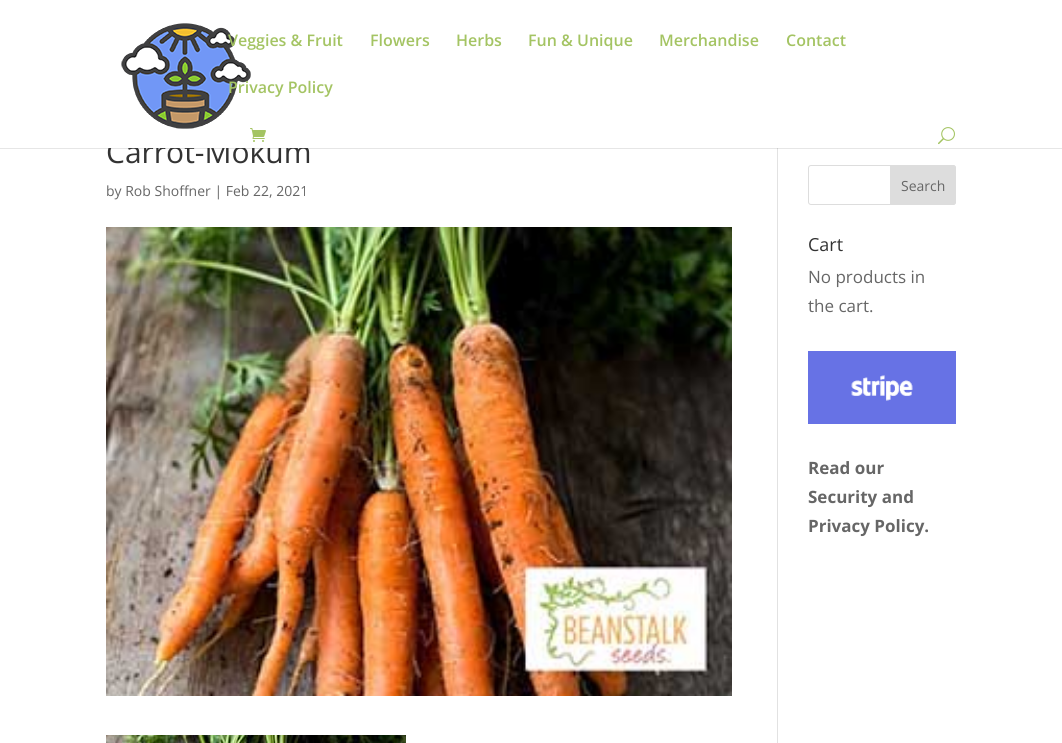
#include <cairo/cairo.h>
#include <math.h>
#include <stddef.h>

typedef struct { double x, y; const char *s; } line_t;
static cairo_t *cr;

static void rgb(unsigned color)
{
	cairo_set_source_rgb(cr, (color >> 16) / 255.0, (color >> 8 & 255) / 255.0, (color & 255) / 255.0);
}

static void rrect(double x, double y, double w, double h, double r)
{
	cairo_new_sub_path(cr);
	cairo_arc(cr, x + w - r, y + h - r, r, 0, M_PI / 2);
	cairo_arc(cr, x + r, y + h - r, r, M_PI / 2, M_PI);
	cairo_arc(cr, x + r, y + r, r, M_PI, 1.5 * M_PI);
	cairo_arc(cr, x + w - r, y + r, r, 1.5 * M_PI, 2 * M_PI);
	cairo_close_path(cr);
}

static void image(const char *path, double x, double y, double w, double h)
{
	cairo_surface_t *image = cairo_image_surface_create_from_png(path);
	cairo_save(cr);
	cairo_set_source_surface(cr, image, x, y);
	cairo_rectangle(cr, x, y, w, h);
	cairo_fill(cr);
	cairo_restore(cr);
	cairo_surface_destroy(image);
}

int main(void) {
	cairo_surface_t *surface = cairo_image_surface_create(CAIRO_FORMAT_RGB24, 1062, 743);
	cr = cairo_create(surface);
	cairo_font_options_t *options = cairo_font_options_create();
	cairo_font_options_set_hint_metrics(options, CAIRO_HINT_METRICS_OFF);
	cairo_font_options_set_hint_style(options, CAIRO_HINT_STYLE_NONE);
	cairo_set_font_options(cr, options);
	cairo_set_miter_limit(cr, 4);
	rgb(0xffffff);
	cairo_paint(cr);
	rgb(0xe2e2e2);
	cairo_rectangle(cr, 777, 148, 1, 595);
	cairo_fill(cr);
	cairo_set_source_rgba(cr, 0, 0, 0, 0.1);
	cairo_rectangle(cr, 0, 148, 1062, 1);
	cairo_fill(cr);
	image("img/1.png", 121, 23, 130, 106);
	image("img/3.png", 938, 127, 17, 18);
	image("img/4.png", 106, 227, 626, 469);
	image("img/5.png", 106, 735, 300, 8);
	rrect(808.5, 165.5, 147, 39, 2.5);
	rgb(0xdddddd);
	cairo_set_line_width(cr, 1);
	cairo_stroke(cr);
	cairo_new_path(cr);
	cairo_move_to(cr, 890.5, 165.5);
	cairo_line_to(cr, 953, 165.5);
	cairo_curve_to(cr, 954.5, 165.5, 955.5, 166.5, 955.5, 168);
	cairo_line_to(cr, 955.5, 202);
	cairo_curve_to(cr, 955.5, 203.5, 954.5, 204.5, 953, 204.5);
	cairo_line_to(cr, 890.5, 204.5);
	cairo_close_path(cr);
	cairo_fill_preserve(cr);
	cairo_stroke(cr);
	image("img/6.png", 808, 351, 148, 73);
	cairo_select_font_face(cr, "Open Sans SemiBold", CAIRO_FONT_SLANT_NORMAL, CAIRO_FONT_WEIGHT_NORMAL);
	cairo_set_font_size(cr, 16);
	rgb(0xa4c463);
	{
		static const line_t items[] = {
			{228, 46, "Veggies & Fruit"},
			{370, 46, "Flowers"},
			{456, 46, "Herbs"},
			{528, 46, "Fun & Unique"},
			{659, 46, "Merchandise"},
			{786, 46, "Contact"},
			{228, 93, "Privacy Policy"},
		};
		for (size_t i = 0; i < sizeof items / sizeof *items; i++) {
			cairo_move_to(cr, items[i].x, items[i].y);
			cairo_show_text(cr, items[i].s);
		}
	}
	cairo_select_font_face(cr, "Open Sans", CAIRO_FONT_SLANT_NORMAL, CAIRO_FONT_WEIGHT_NORMAL);
	cairo_set_font_size(cr, 30);
	rgb(0x333333);
	cairo_move_to(cr, 106, 163);
	cairo_show_text(cr, "Carrot-Mokum");
	rgb(0xffffff);
	cairo_rectangle(cr, 108, 140, 200, 8);
	cairo_fill(cr);
	image("img/2.png", 250, 128, 16, 14);
	cairo_set_font_size(cr, 14);
	rgb(0x666666);
	cairo_move_to(cr, 106, 196);
	cairo_show_text(cr, "by Rob Shoffner | Feb 22, 2021");
	cairo_move_to(cr, 901, 191);
	cairo_show_text(cr, "Search");
	cairo_set_font_size(cr, 18);
	rgb(0x333333);
	cairo_move_to(cr, 808, 251);
	cairo_show_text(cr, "Cart");
	cairo_set_font_size(cr, 17);
	rgb(0x666666);
	cairo_move_to(cr, 808, 283);
	cairo_show_text(cr, "No products in");
	cairo_move_to(cr, 808, 312);
	cairo_show_text(cr, "the cart.");
	cairo_select_font_face(cr, "Open Sans", CAIRO_FONT_SLANT_NORMAL, CAIRO_FONT_WEIGHT_BOLD);
	{
		static const line_t items[] = {
			{808, 474, "Read our"},
			{808, 503, "Security and"},
			{808, 532, "Privacy Policy."},
		};
		for (size_t i = 0; i < sizeof items / sizeof *items; i++) {
			cairo_move_to(cr, items[i].x, items[i].y);
			cairo_show_text(cr, items[i].s);
		}
	}
	cairo_surface_write_to_png(surface, "page.png");
	cairo_font_options_destroy(options);
	cairo_destroy(cr);
	cairo_surface_destroy(surface);
	return 0;
}
